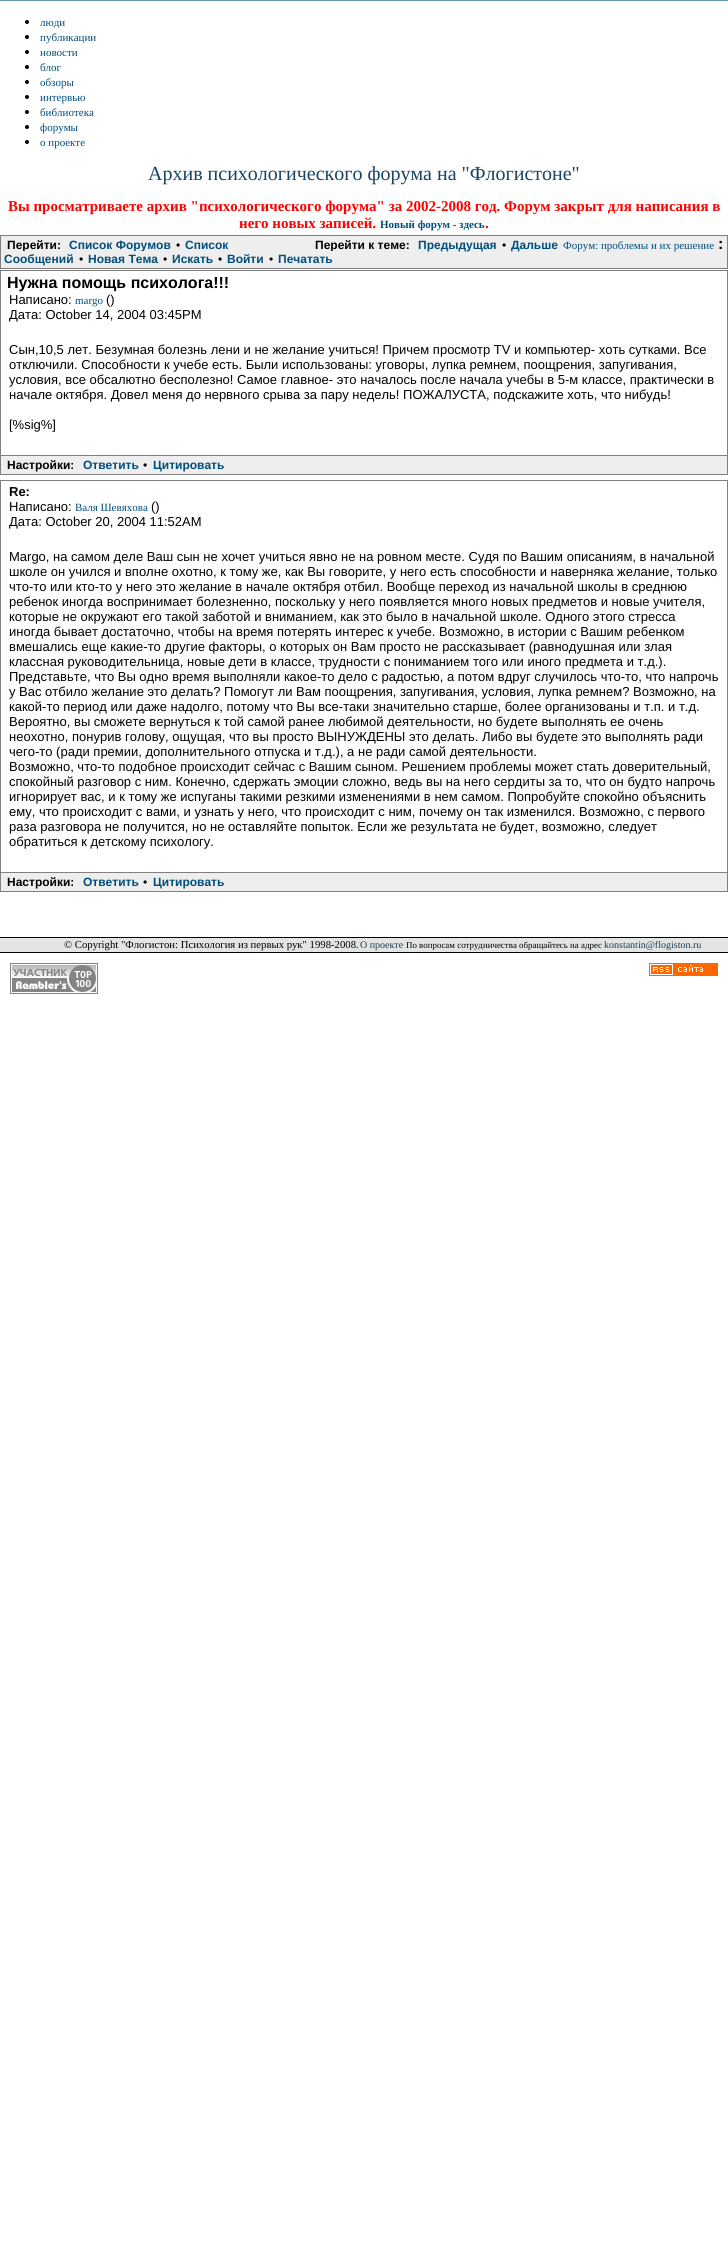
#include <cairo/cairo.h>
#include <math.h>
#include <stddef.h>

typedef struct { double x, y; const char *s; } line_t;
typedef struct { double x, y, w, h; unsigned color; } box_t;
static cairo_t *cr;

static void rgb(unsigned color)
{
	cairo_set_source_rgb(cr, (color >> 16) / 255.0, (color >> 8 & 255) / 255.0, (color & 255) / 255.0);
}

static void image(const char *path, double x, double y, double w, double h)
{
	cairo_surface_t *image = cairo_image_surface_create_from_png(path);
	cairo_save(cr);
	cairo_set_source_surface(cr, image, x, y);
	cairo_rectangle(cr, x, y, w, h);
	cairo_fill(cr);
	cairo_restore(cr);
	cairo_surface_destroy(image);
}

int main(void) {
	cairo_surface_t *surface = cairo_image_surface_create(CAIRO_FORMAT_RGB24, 728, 2262);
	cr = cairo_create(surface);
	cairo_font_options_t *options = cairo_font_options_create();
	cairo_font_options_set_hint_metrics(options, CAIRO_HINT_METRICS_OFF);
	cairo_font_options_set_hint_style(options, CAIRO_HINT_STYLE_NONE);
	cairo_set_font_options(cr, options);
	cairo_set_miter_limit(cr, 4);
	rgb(0xffffff);
	cairo_paint(cr);
	rgb(0x689bae);
	cairo_rectangle(cr, 0, 0, 728, 1);
	cairo_fill(cr);
	rgb(0x000000);
	cairo_arc(cr, 27, 22, 2, 0, 2 * M_PI);
	cairo_fill(cr);
	cairo_arc(cr, 27, 37, 2, 0, 2 * M_PI);
	cairo_fill(cr);
	cairo_arc(cr, 27, 52, 2, 0, 2 * M_PI);
	cairo_fill(cr);
	cairo_arc(cr, 27, 67, 2, 0, 2 * M_PI);
	cairo_fill(cr);
	cairo_arc(cr, 27, 82, 2, 0, 2 * M_PI);
	cairo_fill(cr);
	cairo_arc(cr, 27, 97, 2, 0, 2 * M_PI);
	cairo_fill(cr);
	cairo_arc(cr, 27, 112, 2, 0, 2 * M_PI);
	cairo_fill(cr);
	cairo_arc(cr, 27, 127, 2, 0, 2 * M_PI);
	cairo_fill(cr);
	cairo_arc(cr, 27, 142, 2, 0, 2 * M_PI);
	cairo_fill(cr);
	rgb(0xeeeeee);
	cairo_rectangle(cr, 0.5, 235.5, 727, 33);
	cairo_fill_preserve(cr);
	rgb(0x808080);
	cairo_set_line_width(cr, 1);
	cairo_stroke(cr);
	cairo_rectangle(cr, 0.5, 270.5, 727, 185);
	cairo_stroke(cr);
	{
		static const box_t items[] = {
			{1, 456, 726, 18, 0xeeeeee},
			{727, 456, 1, 19, 0x808080},
			{0, 474, 728, 1, 0x808080},
			{0, 456, 1, 19, 0x808080},
		};
		for (size_t i = 0; i < sizeof items / sizeof *items; i++) {
			rgb(items[i].color);
			cairo_rectangle(cr, items[i].x, items[i].y, items[i].w, items[i].h);
			cairo_fill(cr);
		}
	}
	cairo_rectangle(cr, 0.5, 480.5, 727, 392);
	cairo_stroke(cr);
	{
		static const box_t items[] = {
			{1, 873, 726, 18, 0xeeeeee},
			{727, 873, 1, 19, 0x808080},
			{0, 891, 728, 1, 0x808080},
			{0, 873, 1, 19, 0x808080},
			{0, 938, 728, 14, 0xe3e4e4},
			{0, 937, 728, 1, 0x000000},
			{0, 952, 728, 1, 0x000000},
		};
		for (size_t i = 0; i < sizeof items / sizeof *items; i++) {
			rgb(items[i].color);
			cairo_rectangle(cr, items[i].x, items[i].y, items[i].w, items[i].h);
			cairo_fill(cr);
		}
	}
	image("img/1.png", 10, 963, 88, 31);
	image("img/2.png", 649, 963, 69, 13);
	cairo_select_font_face(cr, "Liberation Serif", CAIRO_FONT_SLANT_NORMAL, CAIRO_FONT_WEIGHT_NORMAL);
	cairo_set_font_size(cr, 11);
	rgb(0x004e7b);
	{
		static const line_t items[] = {
			{40, 26, "люди"},
			{40, 41, "публикации"},
			{40, 56, "новости"},
			{40, 71, "блог"},
			{40, 86, "обзоры"},
			{40, 101, "интервью"},
			{40, 116, "библиотека"},
			{40, 131, "форумы"},
			{40, 146, "о проекте"},
		};
		for (size_t i = 0; i < sizeof items / sizeof *items; i++) {
			cairo_move_to(cr, items[i].x, items[i].y);
			cairo_show_text(cr, items[i].s);
		}
	}
	cairo_set_font_size(cr, 20);
	rgb(0x184362);
	cairo_move_to(cr, 148, 180);
	cairo_show_text(cr, "Архив психологического форума на \"Флогистоне\"");
	cairo_select_font_face(cr, "Liberation Serif", CAIRO_FONT_SLANT_NORMAL, CAIRO_FONT_WEIGHT_BOLD);
	cairo_set_font_size(cr, 15);
	rgb(0xff0000);
	cairo_move_to(cr, 8, 211);
	cairo_show_text(cr, "Вы просматриваете архив \"психологического форума\" за 2002-2008 год. Форум закрыт для написания в");
	cairo_move_to(cr, 239, 228);
	cairo_show_text(cr, "него новых записей.");
	cairo_set_font_size(cr, 11);
	rgb(0x004e7b);
	cairo_move_to(cr, 380, 228);
	cairo_show_text(cr, "Новый форум - здесь");
	cairo_set_font_size(cr, 15);
	rgb(0xff0000);
	cairo_move_to(cr, 485, 228);
	cairo_show_text(cr, ".");
	cairo_select_font_face(cr, "Liberation Sans", CAIRO_FONT_SLANT_NORMAL, CAIRO_FONT_WEIGHT_BOLD);
	cairo_set_font_size(cr, 12);
	rgb(0x000000);
	cairo_move_to(cr, 7, 249);
	cairo_show_text(cr, "Перейти:");
	rgb(0x004e7b);
	cairo_move_to(cr, 69, 249);
	cairo_show_text(cr, "Список Форумов");
	cairo_select_font_face(cr, "Liberation Sans", CAIRO_FONT_SLANT_NORMAL, CAIRO_FONT_WEIGHT_NORMAL);
	rgb(0x000000);
	cairo_move_to(cr, 176, 249);
	cairo_show_text(cr, "•");
	cairo_select_font_face(cr, "Liberation Sans", CAIRO_FONT_SLANT_NORMAL, CAIRO_FONT_WEIGHT_BOLD);
	rgb(0x004e7b);
	cairo_move_to(cr, 185, 249);
	cairo_show_text(cr, "Список");
	rgb(0x000000);
	cairo_move_to(cr, 315, 249);
	cairo_show_text(cr, "Перейти к теме:");
	rgb(0x004e7b);
	cairo_move_to(cr, 418, 249);
	cairo_show_text(cr, "Предыдущая");
	cairo_select_font_face(cr, "Liberation Sans", CAIRO_FONT_SLANT_NORMAL, CAIRO_FONT_WEIGHT_NORMAL);
	rgb(0x000000);
	cairo_move_to(cr, 502, 249);
	cairo_show_text(cr, "•");
	cairo_select_font_face(cr, "Liberation Sans", CAIRO_FONT_SLANT_NORMAL, CAIRO_FONT_WEIGHT_BOLD);
	rgb(0x004e7b);
	cairo_move_to(cr, 511, 249);
	cairo_show_text(cr, "Дальше");
	cairo_move_to(cr, 4, 263);
	cairo_show_text(cr, "Сообщений");
	rgb(0xeeeeee);
	cairo_rectangle(cr, 23, 251, 2, 1);
	cairo_fill(cr);
	cairo_select_font_face(cr, "Liberation Sans", CAIRO_FONT_SLANT_NORMAL, CAIRO_FONT_WEIGHT_NORMAL);
	rgb(0x000000);
	cairo_move_to(cr, 79, 263);
	cairo_show_text(cr, "•");
	cairo_rectangle(cr, 83.5, 251.5, 79, 15);
	rgb(0xeeeeee);
	cairo_stroke(cr);
	cairo_select_font_face(cr, "Liberation Sans", CAIRO_FONT_SLANT_NORMAL, CAIRO_FONT_WEIGHT_BOLD);
	rgb(0x004e7b);
	cairo_move_to(cr, 88, 263);
	cairo_show_text(cr, "Новая Тема");
	cairo_select_font_face(cr, "Liberation Sans", CAIRO_FONT_SLANT_NORMAL, CAIRO_FONT_WEIGHT_NORMAL);
	rgb(0x000000);
	cairo_move_to(cr, 163, 263);
	cairo_show_text(cr, "•");
	cairo_select_font_face(cr, "Liberation Sans", CAIRO_FONT_SLANT_NORMAL, CAIRO_FONT_WEIGHT_BOLD);
	rgb(0x004e7b);
	cairo_move_to(cr, 172, 263);
	cairo_show_text(cr, "Искать");
	cairo_select_font_face(cr, "Liberation Sans", CAIRO_FONT_SLANT_NORMAL, CAIRO_FONT_WEIGHT_NORMAL);
	rgb(0x000000);
	cairo_move_to(cr, 218, 263);
	cairo_show_text(cr, "•");
	cairo_select_font_face(cr, "Liberation Sans", CAIRO_FONT_SLANT_NORMAL, CAIRO_FONT_WEIGHT_BOLD);
	rgb(0x004e7b);
	cairo_move_to(cr, 227, 263);
	cairo_show_text(cr, "Войти");
	cairo_select_font_face(cr, "Liberation Sans", CAIRO_FONT_SLANT_NORMAL, CAIRO_FONT_WEIGHT_NORMAL);
	rgb(0x000000);
	cairo_move_to(cr, 269, 263);
	cairo_show_text(cr, "•");
	cairo_rectangle(cr, 273.5, 251.5, 64, 15);
	rgb(0xeeeeee);
	cairo_stroke(cr);
	cairo_select_font_face(cr, "Liberation Sans", CAIRO_FONT_SLANT_NORMAL, CAIRO_FONT_WEIGHT_BOLD);
	rgb(0x004e7b);
	cairo_move_to(cr, 278, 263);
	cairo_show_text(cr, "Печатать");
	cairo_select_font_face(cr, "Liberation Serif", CAIRO_FONT_SLANT_NORMAL, CAIRO_FONT_WEIGHT_NORMAL);
	cairo_set_font_size(cr, 11);
	cairo_move_to(cr, 563, 249);
	cairo_show_text(cr, "Форум: проблемы и их решение");
	cairo_select_font_face(cr, "Liberation Sans", CAIRO_FONT_SLANT_NORMAL, CAIRO_FONT_WEIGHT_BOLD);
	cairo_set_font_size(cr, 16);
	rgb(0x000000);
	cairo_move_to(cr, 718, 249);
	cairo_show_text(cr, ":");
	cairo_move_to(cr, 7, 288);
	cairo_show_text(cr, "Нужна помощь психолога!!!");
	cairo_select_font_face(cr, "Liberation Sans", CAIRO_FONT_SLANT_NORMAL, CAIRO_FONT_WEIGHT_NORMAL);
	cairo_set_font_size(cr, 13);
	cairo_move_to(cr, 9, 304);
	cairo_show_text(cr, "Написано:");
	cairo_select_font_face(cr, "Liberation Serif", CAIRO_FONT_SLANT_NORMAL, CAIRO_FONT_WEIGHT_NORMAL);
	cairo_set_font_size(cr, 11);
	rgb(0x004e7b);
	cairo_move_to(cr, 75, 304);
	cairo_show_text(cr, "margo");
	cairo_select_font_face(cr, "Liberation Sans", CAIRO_FONT_SLANT_NORMAL, CAIRO_FONT_WEIGHT_NORMAL);
	cairo_set_font_size(cr, 13);
	rgb(0x000000);
	{
		static const line_t items[] = {
			{106, 304, "()"},
			{9, 319, "Дата: October 14, 2004 03:45PM"},
			{9, 354, "Сын,10,5 лет. Безумная болезнь лени и не желание учиться! Причем просмотр TV и компьютер- хоть сутками. Все"},
			{9, 369, "отключили. Способности к учебе есть. Были использованы: уговоры, лупка ремнем, поощрения, запугивания,"},
			{9, 384, "условия, все обсалютно бесполезно! Самое главное- это началось после начала учебы в 5-м классе, практически в"},
			{9, 399, "начале октября. Довел меня до нервного срыва за пару недель! ПОЖАЛУСТА, подскажите хоть, что нибудь!"},
			{9, 429, "[%sig%]"},
		};
		for (size_t i = 0; i < sizeof items / sizeof *items; i++) {
			cairo_move_to(cr, items[i].x, items[i].y);
			cairo_show_text(cr, items[i].s);
		}
	}
	cairo_select_font_face(cr, "Liberation Sans", CAIRO_FONT_SLANT_NORMAL, CAIRO_FONT_WEIGHT_BOLD);
	cairo_set_font_size(cr, 12);
	cairo_move_to(cr, 7, 469);
	cairo_show_text(cr, "Настройки:");
	rgb(0x004e7b);
	cairo_move_to(cr, 83, 469);
	cairo_show_text(cr, "Ответить");
	cairo_select_font_face(cr, "Liberation Sans", CAIRO_FONT_SLANT_NORMAL, CAIRO_FONT_WEIGHT_NORMAL);
	rgb(0x000000);
	cairo_move_to(cr, 143, 469);
	cairo_show_text(cr, "•");
	cairo_select_font_face(cr, "Liberation Sans", CAIRO_FONT_SLANT_NORMAL, CAIRO_FONT_WEIGHT_BOLD);
	rgb(0x004e7b);
	cairo_move_to(cr, 153, 469);
	cairo_show_text(cr, "Цитировать");
	cairo_set_font_size(cr, 13);
	rgb(0x000000);
	cairo_move_to(cr, 9, 496);
	cairo_show_text(cr, "Re:");
	cairo_select_font_face(cr, "Liberation Sans", CAIRO_FONT_SLANT_NORMAL, CAIRO_FONT_WEIGHT_NORMAL);
	cairo_move_to(cr, 9, 511);
	cairo_show_text(cr, "Написано:");
	cairo_select_font_face(cr, "Liberation Serif", CAIRO_FONT_SLANT_NORMAL, CAIRO_FONT_WEIGHT_NORMAL);
	cairo_set_font_size(cr, 11);
	rgb(0x004e7b);
	cairo_move_to(cr, 75, 511);
	cairo_show_text(cr, "Валя Шевяхова");
	cairo_select_font_face(cr, "Liberation Sans", CAIRO_FONT_SLANT_NORMAL, CAIRO_FONT_WEIGHT_NORMAL);
	cairo_set_font_size(cr, 13);
	rgb(0x000000);
	{
		static const line_t items[] = {
			{151, 511, "()"},
			{9, 526, "Дата: October 20, 2004 11:52AM"},
			{9, 561, "Margo, на самом деле Ваш сын не хочет учиться явно не на ровном месте. Судя по Вашим описаниям, в начальной"},
			{9, 576, "школе он учился и вполне охотно, к тому же, как Вы говорите, у него есть способности и наверняка желание, только"},
			{9, 591, "что-то или кто-то у него это желание в начале октября отбил. Вообще переход из начальной школы в среднюю"},
			{9, 606, "ребенок иногда воспринимает болезненно, поскольку у него появляется много новых предметов и новые учителя,"},
			{9, 621, "которые не окружают его такой заботой и вниманием, как это было в начальной школе. Одного этого стресса"},
			{9, 636, "иногда бывает достаточно, чтобы на время потерять интерес к учебе. Возможно, в истории с Вашим ребенком"},
			{9, 651, "вмешались еще какие-то другие факторы, о которых он Вам просто не рассказывает (равнодушная или злая"},
			{9, 666, "классная руководительница, новые дети в классе, трудности с пониманием того или иного предмета и т.д.)."},
			{9, 681, "Представьте, что Вы одно время выполняли какое-то дело с радостью, а потом вдруг случилось что-то, что напрочь"},
			{9, 696, "у Вас отбило желание это делать? Помогут ли Вам поощрения, запугивания, условия, лупка ремнем? Возможно, на"},
			{9, 711, "какой-то период или даже надолго, потому что Вы все-таки значительно старше, более организованы и т.п. и т.д."},
			{9, 726, "Вероятно, вы сможете вернуться к той самой ранее любимой деятельности, но будете выполнять ее очень"},
			{9, 741, "неохотно, понурив голову, ощущая, что вы просто ВЫНУЖДЕНЫ это делать. Либо вы будете это выполнять ради"},
			{9, 756, "чего-то (ради премии, дополнительного отпуска и т.д.), а не ради самой деятельности."},
			{9, 771, "Возможно, что-то подобное происходит сейчас с Вашим сыном. Решением проблемы может стать доверительный,"},
			{9, 786, "спокойный разговор с ним. Конечно, сдержать эмоции сложно, ведь вы на него сердиты за то, что он будто напрочь"},
			{9, 801, "игнорирует вас, и к тому же испуганы такими резкими изменениями в нем самом. Попробуйте спокойно объяснить"},
			{9, 816, "ему, что происходит с вами, и узнать у него, что происходит с ним, почему он так изменился. Возможно, с первого"},
			{9, 831, "раза разговора не получится, но не оставляйте попыток. Если же результата не будет, возможно, следует"},
			{9, 846, "обратиться к детскому психологу."},
		};
		for (size_t i = 0; i < sizeof items / sizeof *items; i++) {
			cairo_move_to(cr, items[i].x, items[i].y);
			cairo_show_text(cr, items[i].s);
		}
	}
	cairo_select_font_face(cr, "Liberation Sans", CAIRO_FONT_SLANT_NORMAL, CAIRO_FONT_WEIGHT_BOLD);
	cairo_set_font_size(cr, 12);
	cairo_move_to(cr, 7, 886);
	cairo_show_text(cr, "Настройки:");
	rgb(0x004e7b);
	cairo_move_to(cr, 83, 886);
	cairo_show_text(cr, "Ответить");
	cairo_select_font_face(cr, "Liberation Sans", CAIRO_FONT_SLANT_NORMAL, CAIRO_FONT_WEIGHT_NORMAL);
	rgb(0x000000);
	cairo_move_to(cr, 143, 886);
	cairo_show_text(cr, "•");
	cairo_select_font_face(cr, "Liberation Sans", CAIRO_FONT_SLANT_NORMAL, CAIRO_FONT_WEIGHT_BOLD);
	rgb(0x004e7b);
	cairo_move_to(cr, 153, 886);
	cairo_show_text(cr, "Цитировать");
	cairo_select_font_face(cr, "Liberation Serif", CAIRO_FONT_SLANT_NORMAL, CAIRO_FONT_WEIGHT_NORMAL);
	cairo_set_font_size(cr, 10.7);
	rgb(0x000000);
	cairo_move_to(cr, 64, 948);
	cairo_show_text(cr, "© Copyright \"Флогистон: Психология из первых рук\" 1998-2008.");
	cairo_set_font_size(cr, 10);
	rgb(0x1a3b4e);
	cairo_move_to(cr, 360, 948);
	cairo_show_text(cr, "О проекте");
	cairo_set_font_size(cr, 8.9);
	rgb(0x000000);
	cairo_move_to(cr, 406, 948);
	cairo_show_text(cr, "По вопросам сотрудничества обращайтесь на адрес");
	cairo_set_font_size(cr, 10);
	rgb(0x1a3b4e);
	cairo_move_to(cr, 604, 948);
	cairo_show_text(cr, "konstantin@flogiston.ru");
	cairo_surface_write_to_png(surface, "page.png");
	cairo_font_options_destroy(options);
	cairo_destroy(cr);
	cairo_surface_destroy(surface);
	return 0;
}
